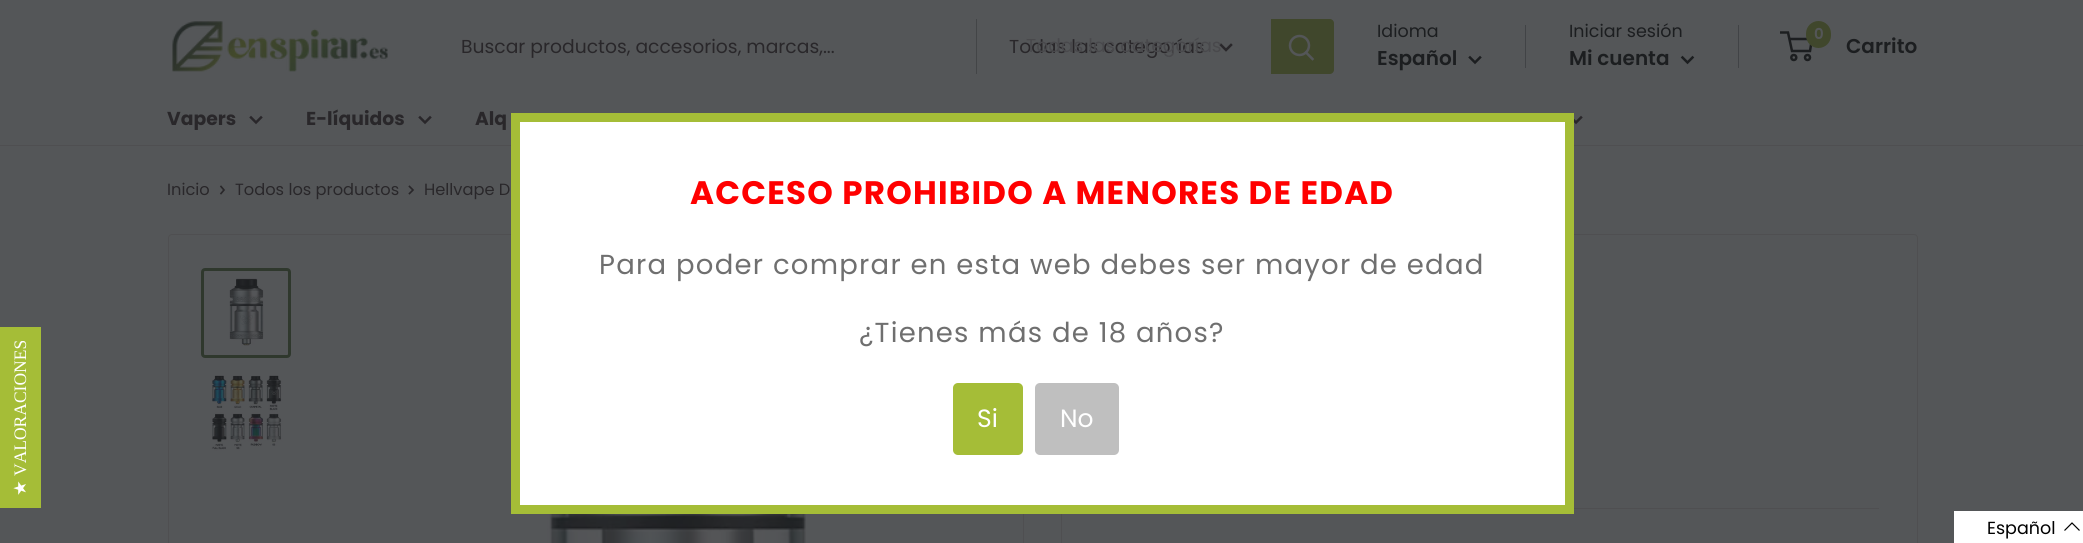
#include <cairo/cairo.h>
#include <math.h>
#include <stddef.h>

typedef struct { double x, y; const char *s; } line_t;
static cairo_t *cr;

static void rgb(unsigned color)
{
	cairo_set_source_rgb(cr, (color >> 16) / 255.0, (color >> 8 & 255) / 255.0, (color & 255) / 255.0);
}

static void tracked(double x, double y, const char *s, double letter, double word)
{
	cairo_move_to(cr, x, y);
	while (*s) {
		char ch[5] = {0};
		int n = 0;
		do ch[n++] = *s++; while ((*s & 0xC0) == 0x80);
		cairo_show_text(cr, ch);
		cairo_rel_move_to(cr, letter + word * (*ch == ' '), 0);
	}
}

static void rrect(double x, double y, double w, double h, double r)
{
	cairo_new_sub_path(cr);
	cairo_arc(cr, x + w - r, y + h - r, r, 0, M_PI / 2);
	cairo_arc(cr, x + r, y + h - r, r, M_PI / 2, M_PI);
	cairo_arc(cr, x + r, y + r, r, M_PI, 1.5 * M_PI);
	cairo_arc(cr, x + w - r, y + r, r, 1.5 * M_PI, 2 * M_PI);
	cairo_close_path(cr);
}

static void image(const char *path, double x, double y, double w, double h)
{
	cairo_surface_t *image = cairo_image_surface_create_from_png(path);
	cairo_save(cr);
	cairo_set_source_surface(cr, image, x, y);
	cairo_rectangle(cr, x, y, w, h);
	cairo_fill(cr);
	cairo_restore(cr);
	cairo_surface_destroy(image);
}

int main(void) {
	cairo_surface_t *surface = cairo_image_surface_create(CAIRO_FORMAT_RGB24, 2083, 543);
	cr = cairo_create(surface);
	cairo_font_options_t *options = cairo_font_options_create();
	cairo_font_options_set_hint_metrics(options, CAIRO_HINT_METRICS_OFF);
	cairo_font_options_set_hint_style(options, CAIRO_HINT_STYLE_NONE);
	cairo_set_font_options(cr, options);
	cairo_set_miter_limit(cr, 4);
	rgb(0x545658);
	cairo_paint(cr);
	image("img/1.png", 172, 21, 216, 51);
	rgb(0x434547);
	cairo_rectangle(cr, 976, 19, 1, 55);
	cairo_fill(cr);
	cairo_new_path(cr);
	cairo_move_to(cr, 1231, 45);
	cairo_line_to(cr, 1226, 50);
	cairo_line_to(cr, 1221, 45);
	rgb(0x29272a);
	cairo_set_line_width(cr, 2.5);
	cairo_set_line_cap(cr, CAIRO_LINE_CAP_SQUARE);
	cairo_stroke(cr);
	rgb(0x40472c);
	cairo_new_path(cr);
	cairo_move_to(cr, 1271, 19);
	cairo_line_to(cr, 1330, 19);
	cairo_curve_to(cr, 1332, 19, 1334, 21, 1334, 23);
	cairo_line_to(cr, 1334, 70);
	cairo_curve_to(cr, 1334, 72, 1332, 74, 1330, 74);
	cairo_line_to(cr, 1271, 74);
	cairo_close_path(cr);
	cairo_fill(cr);
	cairo_new_path(cr);
	cairo_move_to(cr, 1312.5, 59);
	cairo_line_to(cr, 1306, 52.5);
	rgb(0x545658);
	cairo_stroke(cr);
	cairo_arc(cr, 1299.5, 45.5, 9.5, 0, 2 * M_PI);
	cairo_set_line_cap(cr, CAIRO_LINE_CAP_BUTT);
	cairo_stroke(cr);
	cairo_new_path(cr);
	cairo_move_to(cr, 1480, 57.5);
	cairo_line_to(cr, 1475, 62.5);
	cairo_line_to(cr, 1470, 57.5);
	rgb(0x1c1e20);
	cairo_set_line_cap(cr, CAIRO_LINE_CAP_SQUARE);
	cairo_stroke(cr);
	rgb(0x414346);
	cairo_rectangle(cr, 1525, 25, 1, 43);
	cairo_fill(cr);
	cairo_rectangle(cr, 1738, 25, 1, 43);
	cairo_fill(cr);
	cairo_new_path(cr);
	cairo_move_to(cr, 1692.5, 57.5);
	cairo_line_to(cr, 1687.5, 62.5);
	cairo_line_to(cr, 1682.5, 57.5);
	rgb(0x1c1e20);
	cairo_stroke(cr);
	cairo_arc(cr, 1793.8, 57.5, 2.5, 0, 2 * M_PI);
	cairo_set_line_cap(cr, CAIRO_LINE_CAP_BUTT);
	cairo_stroke(cr);
	cairo_arc(cr, 1807.5, 57.5, 2.5, 0, 2 * M_PI);
	cairo_stroke(cr);
	cairo_new_path(cr);
	cairo_move_to(cr, 1789, 39);
	cairo_line_to(cr, 1812, 39);
	cairo_line_to(cr, 1810, 51);
	cairo_line_to(cr, 1792, 51);
	cairo_line_to(cr, 1788, 32.5);
	cairo_line_to(cr, 1780, 32.5);
	cairo_stroke(cr);
	rgb(0x40472c);
	rrect(1806, 21, 25, 27, 12.5);
	cairo_fill(cr);
	rgb(0x4f4f51);
	cairo_rectangle(cr, 0, 145, 2083, 1);
	cairo_fill(cr);
	cairo_new_path(cr);
	cairo_move_to(cr, 261, 117.5);
	cairo_line_to(cr, 256, 122.5);
	cairo_line_to(cr, 251, 117.5);
	rgb(0x29272a);
	cairo_set_line_cap(cr, CAIRO_LINE_CAP_SQUARE);
	cairo_stroke(cr);
	cairo_new_path(cr);
	cairo_move_to(cr, 430, 117.5);
	cairo_line_to(cr, 425, 122.5);
	cairo_line_to(cr, 420, 117.5);
	cairo_stroke(cr);
	cairo_new_path(cr);
	cairo_move_to(cr, 1581, 117.5);
	cairo_line_to(cr, 1576, 122.5);
	cairo_line_to(cr, 1571, 117.5);
	cairo_stroke(cr);
	cairo_new_path(cr);
	cairo_move_to(cr, 221, 186.5);
	cairo_line_to(cr, 224, 190);
	cairo_line_to(cr, 221, 193.5);
	cairo_set_line_width(cr, 1.7);
	cairo_stroke(cr);
	cairo_new_path(cr);
	cairo_move_to(cr, 409.5, 186.5);
	cairo_line_to(cr, 413, 190);
	cairo_line_to(cr, 409.5, 193.5);
	cairo_stroke(cr);
	rrect(168.5, 234.5, 855, 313, 3.5);
	rgb(0x4f4f51);
	cairo_set_line_width(cr, 1);
	cairo_set_line_cap(cr, CAIRO_LINE_CAP_BUTT);
	cairo_stroke(cr);
	rrect(202.5, 269.5, 87, 87, 2.5);
	rgb(0x2f382d);
	cairo_set_line_width(cr, 3);
	cairo_stroke(cr);
	image("img/2.png", 229, 278, 35, 68);
	image("img/3.png", 211, 375, 72, 76);
	image("img/4.png", 547, 514, 259, 29);
	rrect(1061.5, 234.5, 856, 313, 3.5);
	rgb(0x4f4f51);
	cairo_set_line_width(cr, 1);
	cairo_stroke(cr);
	cairo_rectangle(cr, 1574, 508, 305, 1);
	cairo_fill(cr);
	rgb(0xffffff);
	cairo_rectangle(cr, 515.5, 117.5, 1054, 392);
	cairo_fill_preserve(cr);
	rgb(0xa5bd37);
	cairo_set_line_width(cr, 9);
	cairo_stroke(cr);
	rrect(953, 383, 70, 72, 5);
	cairo_fill(cr);
	rgb(0xbfbfbf);
	rrect(1035, 383, 84, 72, 5);
	cairo_fill(cr);
	rgb(0xa5bd37);
	cairo_rectangle(cr, 0, 327, 41, 181);
	cairo_fill(cr);
	rgb(0xffffff);
	cairo_rectangle(cr, 1954, 511, 129, 32);
	cairo_fill(cr);
	cairo_new_path(cr);
	cairo_move_to(cr, 2079.5, 530.5);
	cairo_line_to(cr, 2072, 523);
	cairo_line_to(cr, 2064.5, 530.5);
	rgb(0x000000);
	cairo_set_line_width(cr, 1.2);
	cairo_stroke(cr);
	cairo_select_font_face(cr, "Poppins", CAIRO_FONT_SLANT_NORMAL, CAIRO_FONT_WEIGHT_NORMAL);
	cairo_set_font_size(cr, 18.75);
	rgb(0x29272a);
	cairo_move_to(cr, 461, 53);
	cairo_show_text(cr, "Buscar productos, accesorios, marcas,...");
	cairo_move_to(cr, 1009, 53);
	cairo_show_text(cr, "Todas las categorías");
	rgb(0x49494c);
	cairo_move_to(cr, 1026, 52);
	cairo_show_text(cr, "Todas las categorías");
	cairo_set_font_size(cr, 17.5);
	rgb(0x1c1e20);
	cairo_move_to(cr, 1377, 37);
	cairo_show_text(cr, "Idioma");
	cairo_select_font_face(cr, "Poppins SemiBold", CAIRO_FONT_SLANT_NORMAL, CAIRO_FONT_WEIGHT_NORMAL);
	cairo_set_font_size(cr, 20);
	cairo_move_to(cr, 1377, 65);
	cairo_show_text(cr, "Español");
	cairo_select_font_face(cr, "Poppins", CAIRO_FONT_SLANT_NORMAL, CAIRO_FONT_WEIGHT_NORMAL);
	cairo_set_font_size(cr, 17.5);
	cairo_move_to(cr, 1569, 37);
	cairo_show_text(cr, "Iniciar sesión");
	cairo_select_font_face(cr, "Poppins SemiBold", CAIRO_FONT_SLANT_NORMAL, CAIRO_FONT_WEIGHT_NORMAL);
	cairo_set_font_size(cr, 20);
	cairo_move_to(cr, 1569, 65);
	cairo_show_text(cr, "Mi cuenta");
	cairo_set_font_size(cr, 15);
	rgb(0x545658);
	cairo_move_to(cr, 1814, 39);
	cairo_show_text(cr, "0");
	cairo_set_font_size(cr, 20);
	rgb(0x1c1e20);
	cairo_move_to(cr, 1846, 53);
	cairo_show_text(cr, "Carrito");
	cairo_select_font_face(cr, "Poppins", CAIRO_FONT_SLANT_NORMAL, CAIRO_FONT_WEIGHT_BOLD);
	cairo_set_font_size(cr, 18.75);
	rgb(0x29272a);
	{
		static const line_t items[] = {
			{167, 125, "Vapers"},
			{306, 125, "E-líquidos"},
			{475, 125, "Alq"},
		};
		for (size_t i = 0; i < sizeof items / sizeof *items; i++) {
			cairo_move_to(cr, items[i].x, items[i].y);
			cairo_show_text(cr, items[i].s);
		}
	}
	cairo_select_font_face(cr, "Poppins", CAIRO_FONT_SLANT_NORMAL, CAIRO_FONT_WEIGHT_NORMAL);
	cairo_set_font_size(cr, 16.25);
	{
		static const line_t items[] = {
			{167, 195, "Inicio"},
			{235, 195, "Todos los productos"},
			{424, 195, "Hellvape D"},
		};
		for (size_t i = 0; i < sizeof items / sizeof *items; i++) {
			cairo_move_to(cr, items[i].x, items[i].y);
			cairo_show_text(cr, items[i].s);
		}
	}
	cairo_select_font_face(cr, "Poppins", CAIRO_FONT_SLANT_NORMAL, CAIRO_FONT_WEIGHT_BOLD);
	cairo_set_font_size(cr, 32.5);
	rgb(0xff0000);
	tracked(690, 204, "ACCESO PROHIBIDO A MENORES DE EDAD", 1.25, 0);
	cairo_select_font_face(cr, "Poppins", CAIRO_FONT_SLANT_NORMAL, CAIRO_FONT_WEIGHT_NORMAL);
	cairo_set_font_size(cr, 27.5);
	rgb(0x6f6f6f);
	tracked(599, 274, "Para poder comprar en esta web debes ser mayor de edad", 1.25, 0);
	tracked(859, 342, "¿Tienes más de 18 años?", 1.25, 0);
	cairo_set_font_size(cr, 25);
	rgb(0xffffff);
	cairo_move_to(cr, 977, 427);
	cairo_show_text(cr, "Si");
	cairo_move_to(cr, 1060, 427);
	cairo_show_text(cr, "No");
	cairo_select_font_face(cr, "Liberation Serif", CAIRO_FONT_SLANT_NORMAL, CAIRO_FONT_WEIGHT_NORMAL);
	cairo_set_font_size(cr, 17.5);
	cairo_save(cr);
	cairo_translate(cr, 26, 476);
	cairo_rotate(cr, -90 * M_PI / 180);
	cairo_move_to(cr, 0, 0);
	cairo_show_text(cr, "VALORACIONES");
	cairo_restore(cr);
	cairo_select_font_face(cr, "DejaVu Sans", CAIRO_FONT_SLANT_NORMAL, CAIRO_FONT_WEIGHT_NORMAL);
	cairo_save(cr);
	cairo_translate(cr, 26, 496);
	cairo_rotate(cr, -90 * M_PI / 180);
	cairo_move_to(cr, 0, 0);
	cairo_show_text(cr, "★");
	cairo_restore(cr);
	cairo_select_font_face(cr, "Poppins", CAIRO_FONT_SLANT_NORMAL, CAIRO_FONT_WEIGHT_NORMAL);
	rgb(0x000000);
	cairo_move_to(cr, 1987, 534);
	cairo_show_text(cr, "Español");
	cairo_surface_write_to_png(surface, "page.png");
	cairo_font_options_destroy(options);
	cairo_destroy(cr);
	cairo_surface_destroy(surface);
	return 0;
}
